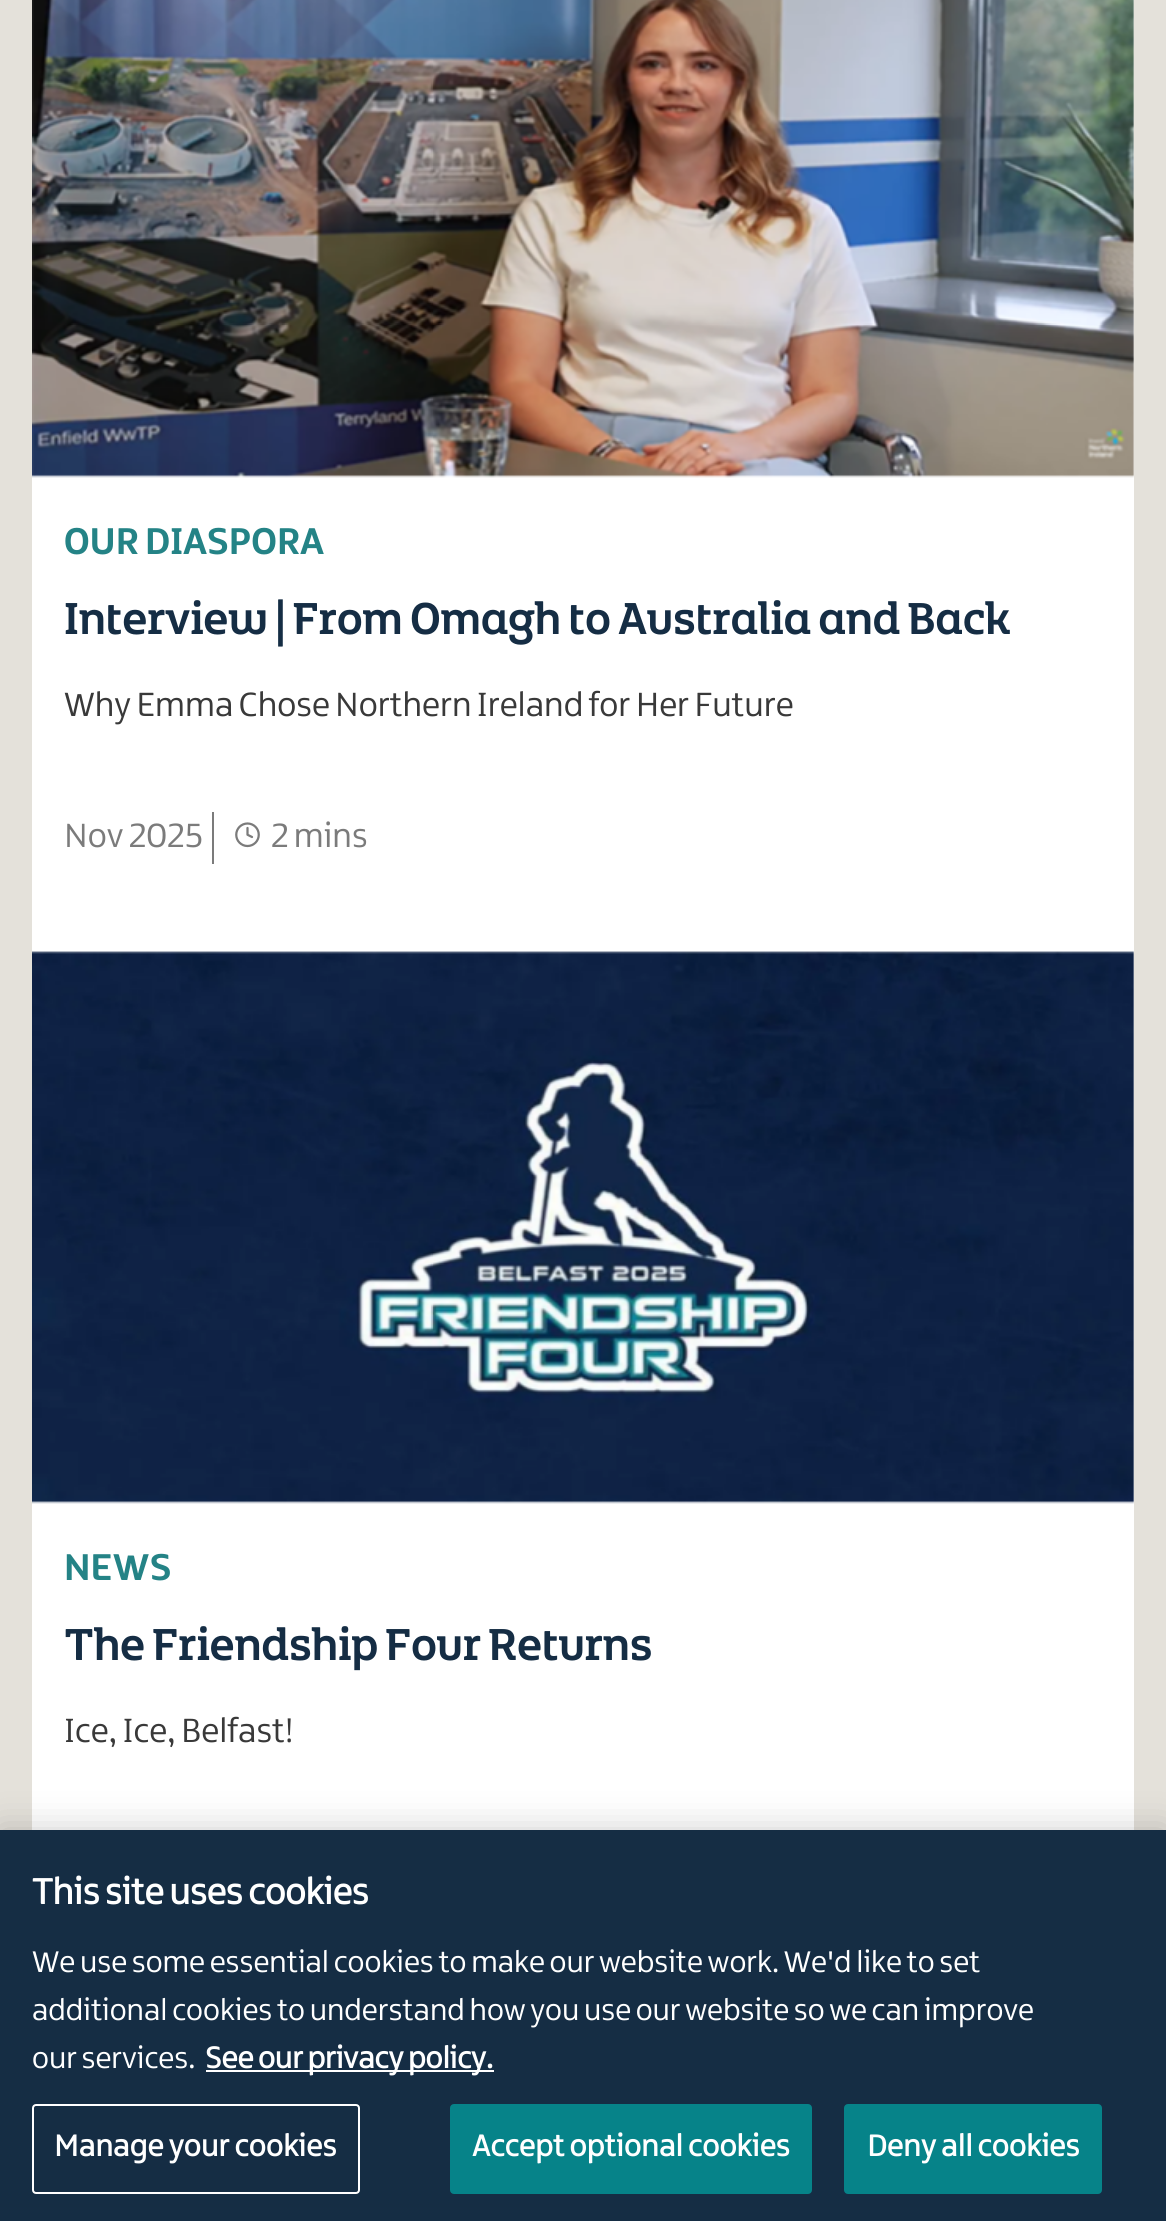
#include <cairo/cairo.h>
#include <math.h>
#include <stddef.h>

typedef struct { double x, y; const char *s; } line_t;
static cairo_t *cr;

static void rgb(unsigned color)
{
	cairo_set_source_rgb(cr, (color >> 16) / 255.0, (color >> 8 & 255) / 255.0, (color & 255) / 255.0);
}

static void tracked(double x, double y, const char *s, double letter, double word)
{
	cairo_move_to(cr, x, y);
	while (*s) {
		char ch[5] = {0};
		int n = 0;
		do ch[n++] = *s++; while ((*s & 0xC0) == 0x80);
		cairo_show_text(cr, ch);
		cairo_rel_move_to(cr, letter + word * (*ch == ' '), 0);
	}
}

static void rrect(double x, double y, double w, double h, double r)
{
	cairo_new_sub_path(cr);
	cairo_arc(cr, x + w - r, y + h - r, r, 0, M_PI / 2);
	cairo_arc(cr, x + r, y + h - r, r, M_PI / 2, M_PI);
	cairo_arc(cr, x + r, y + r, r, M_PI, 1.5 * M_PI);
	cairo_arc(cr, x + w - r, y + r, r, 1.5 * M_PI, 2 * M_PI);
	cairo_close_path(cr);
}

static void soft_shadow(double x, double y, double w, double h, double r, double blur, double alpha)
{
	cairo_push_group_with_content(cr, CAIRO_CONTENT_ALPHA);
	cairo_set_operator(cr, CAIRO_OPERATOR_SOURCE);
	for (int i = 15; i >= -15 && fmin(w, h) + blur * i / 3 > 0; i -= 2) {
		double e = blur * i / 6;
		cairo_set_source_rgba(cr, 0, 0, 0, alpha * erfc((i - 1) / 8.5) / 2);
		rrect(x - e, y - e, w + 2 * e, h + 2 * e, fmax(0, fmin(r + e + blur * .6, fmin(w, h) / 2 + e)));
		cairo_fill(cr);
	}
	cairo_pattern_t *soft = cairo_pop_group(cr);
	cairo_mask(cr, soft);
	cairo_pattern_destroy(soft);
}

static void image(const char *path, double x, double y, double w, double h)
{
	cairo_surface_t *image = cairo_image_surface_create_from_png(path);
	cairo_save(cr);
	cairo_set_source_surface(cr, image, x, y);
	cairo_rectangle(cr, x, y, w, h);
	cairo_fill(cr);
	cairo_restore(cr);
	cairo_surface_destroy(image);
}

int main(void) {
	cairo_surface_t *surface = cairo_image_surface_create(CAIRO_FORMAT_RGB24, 1166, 2221);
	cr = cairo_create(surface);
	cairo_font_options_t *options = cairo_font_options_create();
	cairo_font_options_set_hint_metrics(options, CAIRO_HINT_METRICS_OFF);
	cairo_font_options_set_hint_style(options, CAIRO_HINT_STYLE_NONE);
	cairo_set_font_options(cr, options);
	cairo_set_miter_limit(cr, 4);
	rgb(0xe4e1da);
	cairo_paint(cr);
	rgb(0xffffff);
	cairo_rectangle(cr, 32, 0, 1102, 1830);
	cairo_fill(cr);
	image("img/1.png", 32, 0, 1102, 478);
	rgb(0x7b7b7b);
	cairo_rectangle(cr, 212, 812, 2, 52);
	cairo_fill(cr);
	image("img/2.png", 235, 822, 25, 26);
	image("img/3.png", 32, 951, 1102, 553);
	rgb(0x000000);
	soft_shadow(0, 1830, 1166, 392, 0, 18, 0.2);
	rgb(0x152d44);
	cairo_rectangle(cr, 0, 1830, 1166, 391);
	cairo_fill(cr);
	rgb(0xffffff);
	cairo_rectangle(cr, 206, 2070, 288, 2);
	cairo_fill(cr);
	rrect(33, 2105, 326, 88, 3);
	cairo_stroke(cr);
	rgb(0x068389);
	rrect(451, 2105, 360, 88, 3);
	cairo_fill_preserve(cr);
	cairo_stroke(cr);
	rrect(845, 2105, 256, 88, 3);
	cairo_fill_preserve(cr);
	cairo_stroke(cr);
	cairo_select_font_face(cr, "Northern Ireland", CAIRO_FONT_SLANT_NORMAL, CAIRO_FONT_WEIGHT_BOLD);
	cairo_set_font_size(cr, 40);
	rgb(0x248386);
	cairo_move_to(cr, 64, 554);
	cairo_show_text(cr, "OUR DIASPORA");
	cairo_select_font_face(cr, "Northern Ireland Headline", CAIRO_FONT_SLANT_NORMAL, CAIRO_FONT_WEIGHT_NORMAL);
	cairo_set_font_size(cr, 48);
	rgb(0x152d44);
	cairo_move_to(cr, 64, 634);
	cairo_show_text(cr, "Interview | From Omagh to Australia and Back");
	cairo_select_font_face(cr, "Northern Ireland", CAIRO_FONT_SLANT_NORMAL, CAIRO_FONT_WEIGHT_NORMAL);
	cairo_set_font_size(cr, 36);
	rgb(0x393939);
	cairo_move_to(cr, 64, 716);
	cairo_show_text(cr, "Why Emma Chose Northern Ireland for Her Future");
	rgb(0x7b7b7b);
	cairo_move_to(cr, 64, 847);
	cairo_show_text(cr, "Nov 2025");
	cairo_move_to(cr, 271, 847);
	cairo_show_text(cr, "2 mins");
	cairo_select_font_face(cr, "Northern Ireland", CAIRO_FONT_SLANT_NORMAL, CAIRO_FONT_WEIGHT_BOLD);
	cairo_set_font_size(cr, 40);
	rgb(0x248386);
	cairo_move_to(cr, 64, 1580);
	cairo_show_text(cr, "NEWS");
	cairo_select_font_face(cr, "Northern Ireland Headline", CAIRO_FONT_SLANT_NORMAL, CAIRO_FONT_WEIGHT_NORMAL);
	cairo_set_font_size(cr, 48);
	rgb(0x152d44);
	cairo_move_to(cr, 64, 1660);
	cairo_show_text(cr, "The Friendship Four Returns");
	cairo_select_font_face(cr, "Northern Ireland", CAIRO_FONT_SLANT_NORMAL, CAIRO_FONT_WEIGHT_NORMAL);
	cairo_set_font_size(cr, 36);
	rgb(0x393939);
	cairo_move_to(cr, 64, 1742);
	cairo_show_text(cr, "Ice, Ice, Belfast!");
	cairo_select_font_face(cr, "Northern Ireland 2", CAIRO_FONT_SLANT_NORMAL, CAIRO_FONT_WEIGHT_BOLD);
	cairo_set_font_size(cr, 38.5);
	rgb(0xffffff);
	cairo_move_to(cr, 32, 1904);
	cairo_show_text(cr, "This site uses cookies");
	cairo_select_font_face(cr, "Northern Ireland", CAIRO_FONT_SLANT_NORMAL, CAIRO_FONT_WEIGHT_NORMAL);
	cairo_set_font_size(cr, 32);
	{
		static const line_t items[] = {
			{32, 1972, "We use some essential cookies to make our website work. We'd like to set"},
			{32, 2020, "additional cookies to understand how you use our website so we can improve"},
			{32, 2068, "our services."},
		};
		for (size_t i = 0; i < sizeof items / sizeof *items; i++) {
			cairo_move_to(cr, items[i].x, items[i].y);
			cairo_show_text(cr, items[i].s);
		}
	}
	cairo_select_font_face(cr, "Northern Ireland 2", CAIRO_FONT_SLANT_NORMAL, CAIRO_FONT_WEIGHT_BOLD);
	cairo_move_to(cr, 205, 2068);
	cairo_show_text(cr, "See our privacy policy.");
	{
		static const line_t items[] = {
			{54, 2156, "Manage your cookies"},
			{472, 2156, "Accept optional cookies"},
			{867, 2156, "Deny all cookies"},
		};
		for (size_t i = 0; i < sizeof items / sizeof *items; i++) {
			tracked(items[i].x, items[i].y, items[i].s, 0.3, 0);
		}
	}
	cairo_surface_write_to_png(surface, "page.png");
	cairo_font_options_destroy(options);
	cairo_destroy(cr);
	cairo_surface_destroy(surface);
	return 0;
}
